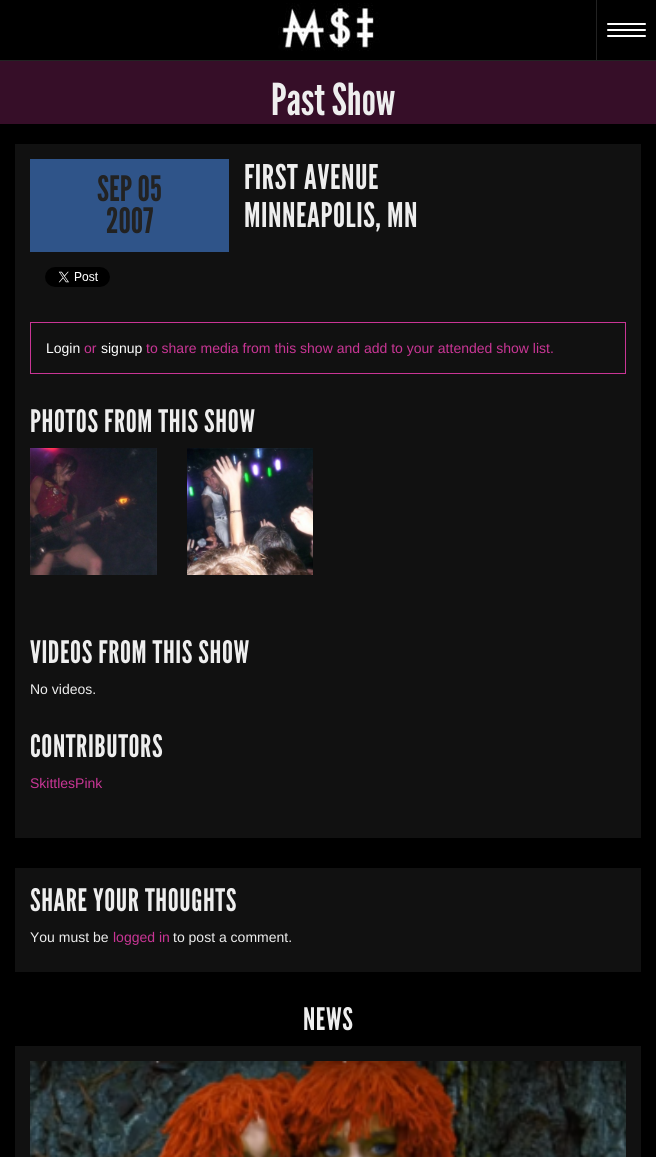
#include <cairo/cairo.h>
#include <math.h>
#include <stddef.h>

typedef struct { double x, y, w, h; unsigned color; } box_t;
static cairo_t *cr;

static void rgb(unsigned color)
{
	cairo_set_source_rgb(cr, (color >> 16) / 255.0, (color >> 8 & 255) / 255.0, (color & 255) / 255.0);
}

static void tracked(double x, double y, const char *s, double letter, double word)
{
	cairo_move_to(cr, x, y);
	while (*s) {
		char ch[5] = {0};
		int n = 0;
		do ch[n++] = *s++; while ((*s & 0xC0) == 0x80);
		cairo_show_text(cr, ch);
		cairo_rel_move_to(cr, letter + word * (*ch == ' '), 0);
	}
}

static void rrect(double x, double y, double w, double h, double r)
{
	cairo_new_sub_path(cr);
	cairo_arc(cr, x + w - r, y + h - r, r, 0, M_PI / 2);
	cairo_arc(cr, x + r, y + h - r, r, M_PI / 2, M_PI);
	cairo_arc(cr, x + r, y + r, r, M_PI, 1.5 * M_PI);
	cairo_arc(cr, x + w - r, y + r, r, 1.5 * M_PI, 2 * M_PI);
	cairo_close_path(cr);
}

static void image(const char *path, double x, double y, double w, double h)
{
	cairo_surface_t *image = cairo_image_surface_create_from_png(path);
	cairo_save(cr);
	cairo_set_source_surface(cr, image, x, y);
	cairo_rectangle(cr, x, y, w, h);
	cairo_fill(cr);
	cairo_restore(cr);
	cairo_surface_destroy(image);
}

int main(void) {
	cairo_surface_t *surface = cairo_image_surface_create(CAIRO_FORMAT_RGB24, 656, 1157);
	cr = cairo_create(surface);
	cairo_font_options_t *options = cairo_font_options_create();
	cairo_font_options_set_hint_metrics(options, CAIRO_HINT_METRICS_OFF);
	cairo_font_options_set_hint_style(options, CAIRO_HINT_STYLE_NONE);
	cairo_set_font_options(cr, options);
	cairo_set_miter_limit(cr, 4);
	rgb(0x000000);
	cairo_paint(cr);
	rgb(0x222222);
	cairo_rectangle(cr, 0, 60, 656, 1);
	cairo_fill(cr);
	image("img/1.png", 278, 3, 102, 48);
	cairo_rectangle(cr, 596, 0, 1, 60);
	cairo_fill(cr);
	rgb(0xffffff);
	rrect(607, 23, 39, 2, 1);
	cairo_fill(cr);
	rrect(607, 29, 39, 2, 1);
	cairo_fill(cr);
	rrect(607, 35, 39, 2, 1);
	cairo_fill(cr);
	{
		static const box_t items[] = {
			{0, 61, 656, 63, 0x360e28},
			{15, 144, 626, 694, 0x111111},
			{30, 159, 199, 93, 0x2f5489},
		};
		for (size_t i = 0; i < sizeof items / sizeof *items; i++) {
			rgb(items[i].color);
			cairo_rectangle(cr, items[i].x, items[i].y, items[i].w, items[i].h);
			cairo_fill(cr);
		}
	}
	image("img/2.png", 45, 267, 65, 20);
	cairo_rectangle(cr, 30.5, 322.5, 595, 51);
	rgb(0xc93595);
	cairo_set_line_width(cr, 1);
	cairo_stroke(cr);
	image("img/3.png", 30, 448, 127, 127);
	image("img/4.png", 187, 448, 126, 127);
	rgb(0x111111);
	cairo_rectangle(cr, 15, 868, 626, 104);
	cairo_fill(cr);
	cairo_rectangle(cr, 15, 1046, 626, 111);
	cairo_fill(cr);
	image("img/5.png", 30, 1061, 596, 96);
	cairo_select_font_face(cr, "League Gothic", CAIRO_FONT_SLANT_NORMAL, CAIRO_FONT_WEIGHT_NORMAL);
	cairo_set_font_size(cr, 44);
	rgb(0xeeeeee);
	cairo_move_to(cr, 271, 115);
	cairo_show_text(cr, "Past Show");
	cairo_set_font_size(cr, 35);
	rgb(0x222222);
	cairo_move_to(cr, 97, 201);
	cairo_show_text(cr, "SEP 05");
	cairo_move_to(cr, 106, 233);
	cairo_show_text(cr, "2007");
	cairo_set_font_size(cr, 34);
	rgb(0xeeeeee);
	tracked(244, 189, "FIRST AVENUE", 0.6, 0);
	tracked(244, 227, "MINNEAPOLIS, MN", 0.6, 0);
	cairo_select_font_face(cr, "Liberation Sans", CAIRO_FONT_SLANT_NORMAL, CAIRO_FONT_WEIGHT_NORMAL);
	cairo_set_font_size(cr, 14);
	rgb(0xffffff);
	cairo_move_to(cr, 46, 353);
	cairo_show_text(cr, "Login");
	rgb(0xc93595);
	cairo_move_to(cr, 84, 353);
	cairo_show_text(cr, "or");
	rgb(0xffffff);
	cairo_move_to(cr, 101, 353);
	cairo_show_text(cr, "signup");
	rgb(0xc93595);
	cairo_move_to(cr, 146, 353);
	cairo_show_text(cr, "to share media from this show and add to your attended show list.");
	cairo_select_font_face(cr, "League Gothic", CAIRO_FONT_SLANT_NORMAL, CAIRO_FONT_WEIGHT_NORMAL);
	cairo_set_font_size(cr, 31);
	rgb(0xeeeeee);
	tracked(30, 432, "PHOTOS FROM THIS SHOW", 0.6, 0);
	tracked(30, 663, "VIDEOS FROM THIS SHOW", 0.6, 0);
	cairo_select_font_face(cr, "Liberation Sans", CAIRO_FONT_SLANT_NORMAL, CAIRO_FONT_WEIGHT_NORMAL);
	cairo_set_font_size(cr, 14);
	cairo_move_to(cr, 30, 694);
	cairo_show_text(cr, "No videos.");
	cairo_select_font_face(cr, "League Gothic", CAIRO_FONT_SLANT_NORMAL, CAIRO_FONT_WEIGHT_NORMAL);
	cairo_set_font_size(cr, 31);
	tracked(30, 757, "CONTRIBUTORS", 0.6, 0);
	cairo_select_font_face(cr, "Liberation Sans", CAIRO_FONT_SLANT_NORMAL, CAIRO_FONT_WEIGHT_NORMAL);
	cairo_set_font_size(cr, 14);
	rgb(0xc93595);
	cairo_move_to(cr, 30, 788);
	cairo_show_text(cr, "SkittlesPink");
	cairo_select_font_face(cr, "League Gothic", CAIRO_FONT_SLANT_NORMAL, CAIRO_FONT_WEIGHT_NORMAL);
	cairo_set_font_size(cr, 31);
	rgb(0xeeeeee);
	tracked(30, 911, "SHARE YOUR THOUGHTS", 0.6, 0);
	cairo_select_font_face(cr, "Liberation Sans", CAIRO_FONT_SLANT_NORMAL, CAIRO_FONT_WEIGHT_NORMAL);
	cairo_set_font_size(cr, 14);
	cairo_move_to(cr, 30, 942);
	cairo_show_text(cr, "You must be");
	rgb(0xc93595);
	cairo_move_to(cr, 113, 942);
	cairo_show_text(cr, "logged in");
	rgb(0xeeeeee);
	cairo_move_to(cr, 173, 942);
	cairo_show_text(cr, "to post a comment.");
	cairo_select_font_face(cr, "League Gothic", CAIRO_FONT_SLANT_NORMAL, CAIRO_FONT_WEIGHT_NORMAL);
	cairo_set_font_size(cr, 31);
	tracked(303, 1030, "NEWS", 0.6, 0);
	cairo_surface_write_to_png(surface, "page.png");
	cairo_font_options_destroy(options);
	cairo_destroy(cr);
	cairo_surface_destroy(surface);
	return 0;
}
